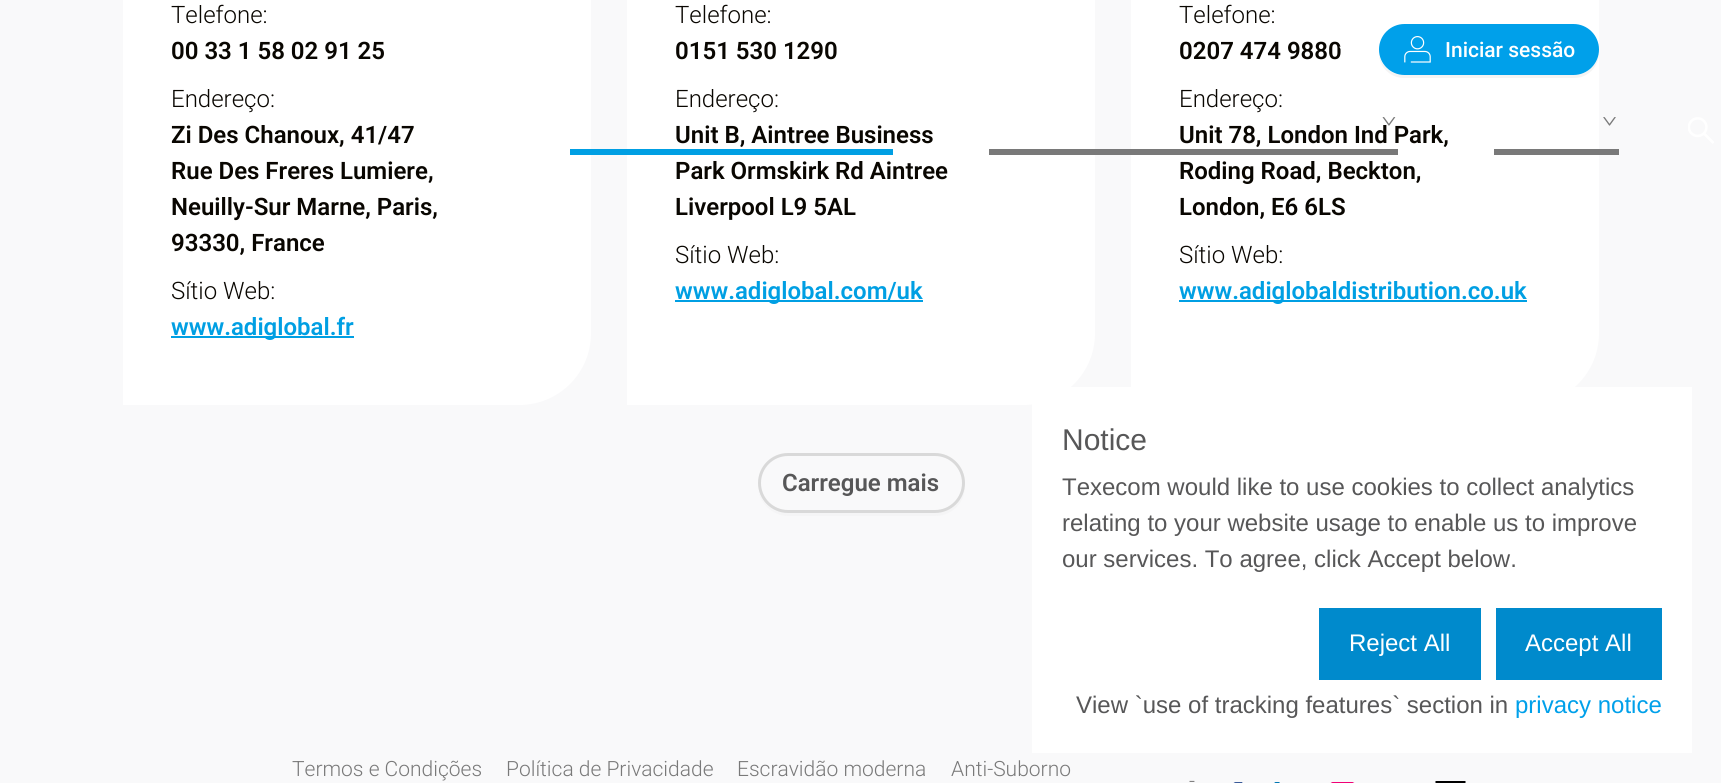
#include <cairo/cairo.h>
#include <math.h>
#include <stddef.h>

typedef struct { double x, y; const char *s; } line_t;
typedef struct { double x, y, w, h; unsigned color; } box_t;
static cairo_t *cr;

static void rgb(unsigned color)
{
	cairo_set_source_rgb(cr, (color >> 16) / 255.0, (color >> 8 & 255) / 255.0, (color & 255) / 255.0);
}

static void rrect(double x, double y, double w, double h, double r)
{
	cairo_new_sub_path(cr);
	cairo_arc(cr, x + w - r, y + h - r, r, 0, M_PI / 2);
	cairo_arc(cr, x + r, y + h - r, r, M_PI / 2, M_PI);
	cairo_arc(cr, x + r, y + r, r, M_PI, 1.5 * M_PI);
	cairo_arc(cr, x + w - r, y + r, r, 1.5 * M_PI, 2 * M_PI);
	cairo_close_path(cr);
}

static void image(const char *path, double x, double y, double w, double h)
{
	cairo_surface_t *image = cairo_image_surface_create_from_png(path);
	cairo_save(cr);
	cairo_set_source_surface(cr, image, x, y);
	cairo_rectangle(cr, x, y, w, h);
	cairo_fill(cr);
	cairo_restore(cr);
	cairo_surface_destroy(image);
}

int main(void) {
	cairo_surface_t *surface = cairo_image_surface_create(CAIRO_FORMAT_RGB24, 1721, 783);
	cr = cairo_create(surface);
	cairo_font_options_t *options = cairo_font_options_create();
	cairo_font_options_set_hint_metrics(options, CAIRO_HINT_METRICS_OFF);
	cairo_font_options_set_hint_style(options, CAIRO_HINT_STYLE_NONE);
	cairo_set_font_options(cr, options);
	cairo_set_miter_limit(cr, 4);
	rgb(0xf9f9fa);
	cairo_paint(cr);
	rgb(0xffffff);
	cairo_new_path(cr);
	cairo_move_to(cr, 123, -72);
	cairo_line_to(cr, 591, -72);
	cairo_line_to(cr, 591, 333);
	cairo_curve_to(cr, 591, 373, 559, 405, 519, 405);
	cairo_line_to(cr, 123, 405);
	cairo_close_path(cr);
	cairo_fill(cr);
	rgb(0x009fe3);
	cairo_rectangle(cr, 171, 336, 183, 2);
	cairo_fill(cr);
	rgb(0xffffff);
	cairo_new_path(cr);
	cairo_move_to(cr, 627, -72);
	cairo_line_to(cr, 1095, -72);
	cairo_line_to(cr, 1095, 333);
	cairo_curve_to(cr, 1095, 373, 1063, 405, 1023, 405);
	cairo_line_to(cr, 627, 405);
	cairo_close_path(cr);
	cairo_fill(cr);
	rgb(0x009fe3);
	cairo_rectangle(cr, 675, 300, 248, 2);
	cairo_fill(cr);
	rgb(0xffffff);
	cairo_new_path(cr);
	cairo_move_to(cr, 1131, -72);
	cairo_line_to(cr, 1599, -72);
	cairo_line_to(cr, 1599, 333);
	cairo_curve_to(cr, 1599, 373, 1567, 405, 1527, 405);
	cairo_line_to(cr, 1131, 405);
	cairo_close_path(cr);
	cairo_fill(cr);
	rgb(0x009fe3);
	cairo_rectangle(cr, 1179, 300, 348, 2);
	cairo_fill(cr);
	rgb(0xf5f5f6);
	cairo_new_path(cr);
	cairo_move_to(cr, 758, 489);
	cairo_curve_to(cr, 760, 504, 773, 516, 788, 516);
	cairo_line_to(cr, 935, 516);
	cairo_curve_to(cr, 952, 516, 965, 503, 965, 486);
	cairo_line_to(cr, 964, 480);
	cairo_line_to(cr, 964, 483);
	cairo_curve_to(cr, 964, 500, 951, 513, 934, 513);
	cairo_line_to(cr, 788, 513);
	cairo_curve_to(cr, 773, 513, 761, 503, 758, 489);
	cairo_close_path(cr);
	cairo_fill(cr);
	rgb(0xf9f9fa);
	rrect(759.5, 454.5, 204, 57, 28.5);
	cairo_fill_preserve(cr);
	rgb(0xd9d9d9);
	cairo_set_line_width(cr, 3);
	cairo_stroke(cr);
	image("img/1.png", 1233, 782, 10, 1);
	image("img/2.png", 1274, 782, 6, 1);
	image("img/3.png", 1330, 782, 25, 1);
	image("img/4.png", 1435, 781, 31, 2);
	rgb(0xf4f4f4);
	cairo_new_path(cr);
	cairo_move_to(cr, 1379, 55);
	cairo_curve_to(cr, 1380, 68, 1391, 78, 1404, 78);
	cairo_line_to(cr, 1574, 78);
	cairo_curve_to(cr, 1588, 78, 1599, 67, 1599, 52);
	cairo_line_to(cr, 1599, 51);
	cairo_curve_to(cr, 1598, 64, 1587, 75, 1574, 75);
	cairo_line_to(cr, 1404, 75);
	cairo_curve_to(cr, 1392, 75, 1382, 67, 1379, 55);
	cairo_close_path(cr);
	cairo_fill(cr);
	rgb(0x00a0ea);
	rrect(1380, 25, 218, 49, 24.5);
	cairo_fill_preserve(cr);
	cairo_set_line_width(cr, 2);
	cairo_stroke(cr);
	image("img/6.png", 1404, 36, 27, 27);
	{
		static const box_t items[] = {
			{570, 149, 323, 6, 0x009fe3},
			{989, 149, 409, 6, 0x797979},
			{1494, 149, 125, 6, 0x797979},
		};
		for (size_t i = 0; i < sizeof items / sizeof *items; i++) {
			rgb(items[i].color);
			cairo_rectangle(cr, items[i].x, items[i].y, items[i].w, items[i].h);
			cairo_fill(cr);
		}
	}
	image("img/8.png", 1603, 117, 13, 9);
	image("img/9.png", 1688, 117, 26, 27);
	{
		static const box_t items[] = {
			{1032, 387, 660, 366, 0xffffff},
			{1319, 608, 162, 72, 0x008acc},
			{1496, 608, 166, 72, 0x008acc},
		};
		for (size_t i = 0; i < sizeof items / sizeof *items; i++) {
			rgb(items[i].color);
			cairo_rectangle(cr, items[i].x, items[i].y, items[i].w, items[i].h);
			cairo_fill(cr);
		}
	}
	cairo_select_font_face(cr, "Roboto Light", CAIRO_FONT_SLANT_NORMAL, CAIRO_FONT_WEIGHT_NORMAL);
	cairo_set_font_size(cr, 24);
	rgb(0x090601);
	cairo_move_to(cr, 171, 23);
	cairo_show_text(cr, "Telefone:");
	cairo_select_font_face(cr, "Roboto SemiBold", CAIRO_FONT_SLANT_NORMAL, CAIRO_FONT_WEIGHT_NORMAL);
	cairo_move_to(cr, 171, 59);
	cairo_show_text(cr, "00 33 1 58 02 91 25");
	cairo_select_font_face(cr, "Roboto Light", CAIRO_FONT_SLANT_NORMAL, CAIRO_FONT_WEIGHT_NORMAL);
	cairo_move_to(cr, 171, 107);
	cairo_show_text(cr, "Endereço:");
	cairo_select_font_face(cr, "Roboto SemiBold", CAIRO_FONT_SLANT_NORMAL, CAIRO_FONT_WEIGHT_NORMAL);
	{
		static const line_t items[] = {
			{171, 143, "Zi Des Chanoux, 41/47"},
			{171, 179, "Rue Des Freres Lumiere,"},
			{171, 215, "Neuilly-Sur Marne, Paris,"},
			{171, 251, "93330, France"},
		};
		for (size_t i = 0; i < sizeof items / sizeof *items; i++) {
			cairo_move_to(cr, items[i].x, items[i].y);
			cairo_show_text(cr, items[i].s);
		}
	}
	cairo_select_font_face(cr, "Roboto Light", CAIRO_FONT_SLANT_NORMAL, CAIRO_FONT_WEIGHT_NORMAL);
	cairo_move_to(cr, 171, 299);
	cairo_show_text(cr, "Sítio Web:");
	cairo_select_font_face(cr, "Roboto SemiBold", CAIRO_FONT_SLANT_NORMAL, CAIRO_FONT_WEIGHT_NORMAL);
	rgb(0x009fe3);
	cairo_move_to(cr, 171, 335);
	cairo_show_text(cr, "www.adiglobal.fr");
	cairo_select_font_face(cr, "Roboto Light", CAIRO_FONT_SLANT_NORMAL, CAIRO_FONT_WEIGHT_NORMAL);
	rgb(0x090601);
	cairo_move_to(cr, 675, 23);
	cairo_show_text(cr, "Telefone:");
	cairo_select_font_face(cr, "Roboto SemiBold", CAIRO_FONT_SLANT_NORMAL, CAIRO_FONT_WEIGHT_NORMAL);
	cairo_move_to(cr, 675, 59);
	cairo_show_text(cr, "0151 530 1290");
	cairo_select_font_face(cr, "Roboto Light", CAIRO_FONT_SLANT_NORMAL, CAIRO_FONT_WEIGHT_NORMAL);
	cairo_move_to(cr, 675, 107);
	cairo_show_text(cr, "Endereço:");
	cairo_select_font_face(cr, "Roboto SemiBold", CAIRO_FONT_SLANT_NORMAL, CAIRO_FONT_WEIGHT_NORMAL);
	{
		static const line_t items[] = {
			{675, 143, "Unit B, Aintree Business"},
			{675, 179, "Park Ormskirk Rd Aintree"},
			{675, 215, "Liverpool L9 5AL"},
		};
		for (size_t i = 0; i < sizeof items / sizeof *items; i++) {
			cairo_move_to(cr, items[i].x, items[i].y);
			cairo_show_text(cr, items[i].s);
		}
	}
	cairo_select_font_face(cr, "Roboto Light", CAIRO_FONT_SLANT_NORMAL, CAIRO_FONT_WEIGHT_NORMAL);
	cairo_move_to(cr, 675, 263);
	cairo_show_text(cr, "Sítio Web:");
	cairo_select_font_face(cr, "Roboto SemiBold", CAIRO_FONT_SLANT_NORMAL, CAIRO_FONT_WEIGHT_NORMAL);
	rgb(0x009fe3);
	cairo_move_to(cr, 675, 299);
	cairo_show_text(cr, "www.adiglobal.com/uk");
	cairo_select_font_face(cr, "Roboto Light", CAIRO_FONT_SLANT_NORMAL, CAIRO_FONT_WEIGHT_NORMAL);
	rgb(0x090601);
	cairo_move_to(cr, 1179, 23);
	cairo_show_text(cr, "Telefone:");
	cairo_select_font_face(cr, "Roboto SemiBold", CAIRO_FONT_SLANT_NORMAL, CAIRO_FONT_WEIGHT_NORMAL);
	cairo_move_to(cr, 1179, 59);
	cairo_show_text(cr, "0207 474 9880");
	cairo_select_font_face(cr, "Roboto Light", CAIRO_FONT_SLANT_NORMAL, CAIRO_FONT_WEIGHT_NORMAL);
	cairo_move_to(cr, 1179, 107);
	cairo_show_text(cr, "Endereço:");
	cairo_select_font_face(cr, "Roboto SemiBold", CAIRO_FONT_SLANT_NORMAL, CAIRO_FONT_WEIGHT_NORMAL);
	{
		static const line_t items[] = {
			{1179, 143, "Unit 78, London Ind Park,"},
			{1179, 179, "Roding Road, Beckton,"},
			{1179, 215, "London, E6 6LS"},
		};
		for (size_t i = 0; i < sizeof items / sizeof *items; i++) {
			cairo_move_to(cr, items[i].x, items[i].y);
			cairo_show_text(cr, items[i].s);
		}
	}
	cairo_select_font_face(cr, "Roboto Light", CAIRO_FONT_SLANT_NORMAL, CAIRO_FONT_WEIGHT_NORMAL);
	cairo_move_to(cr, 1179, 263);
	cairo_show_text(cr, "Sítio Web:");
	cairo_select_font_face(cr, "Roboto SemiBold", CAIRO_FONT_SLANT_NORMAL, CAIRO_FONT_WEIGHT_NORMAL);
	rgb(0x009fe3);
	cairo_move_to(cr, 1179, 299);
	cairo_show_text(cr, "www.adiglobaldistribution.co.uk");
	rgb(0x575758);
	cairo_move_to(cr, 782, 491);
	cairo_show_text(cr, "Carregue mais");
	cairo_select_font_face(cr, "Roboto Light", CAIRO_FONT_SLANT_NORMAL, CAIRO_FONT_WEIGHT_NORMAL);
	cairo_set_font_size(cr, 21);
	rgb(0x797979);
	{
		static const line_t items[] = {
			{292, 776, "Termos e Condições"},
			{506, 776, "Política de Privacidade"},
			{737, 776, "Escravidão moderna"},
			{951, 776, "Anti-Suborno"},
			{1189, 788, "-"},
		};
		for (size_t i = 0; i < sizeof items / sizeof *items; i++) {
			cairo_move_to(cr, items[i].x, items[i].y);
			cairo_show_text(cr, items[i].s);
		}
	}
	image("img/5.png", 1339, 46, 2, 4);
	cairo_select_font_face(cr, "Roboto Medium", CAIRO_FONT_SLANT_NORMAL, CAIRO_FONT_WEIGHT_NORMAL);
	rgb(0xffffff);
	cairo_move_to(cr, 1445, 57);
	cairo_show_text(cr, "Iniciar sessão");
	image("img/7.png", 1382, 117, 14, 9);
	cairo_select_font_face(cr, "Liberation Sans", CAIRO_FONT_SLANT_NORMAL, CAIRO_FONT_WEIGHT_NORMAL);
	cairo_set_font_size(cr, 30);
	rgb(0x575758);
	cairo_move_to(cr, 1062, 450);
	cairo_show_text(cr, "Notice");
	cairo_set_font_size(cr, 24);
	{
		static const line_t items[] = {
			{1062, 495, "Texecom would like to use cookies to collect analytics"},
			{1062, 531, "relating to your website usage to enable us to improve"},
			{1062, 567, "our services. To agree, click Accept below."},
		};
		for (size_t i = 0; i < sizeof items / sizeof *items; i++) {
			cairo_move_to(cr, items[i].x, items[i].y);
			cairo_show_text(cr, items[i].s);
		}
	}
	rgb(0xffffff);
	cairo_move_to(cr, 1349, 651);
	cairo_show_text(cr, "Reject All");
	cairo_move_to(cr, 1525, 651);
	cairo_show_text(cr, "Accept All");
	rgb(0x575758);
	cairo_move_to(cr, 1076, 713);
	cairo_show_text(cr, "View `use of tracking features` section in");
	rgb(0x00a0ea);
	cairo_move_to(cr, 1515, 713);
	cairo_show_text(cr, "privacy notice");
	cairo_surface_write_to_png(surface, "page.png");
	cairo_font_options_destroy(options);
	cairo_destroy(cr);
	cairo_surface_destroy(surface);
	return 0;
}
